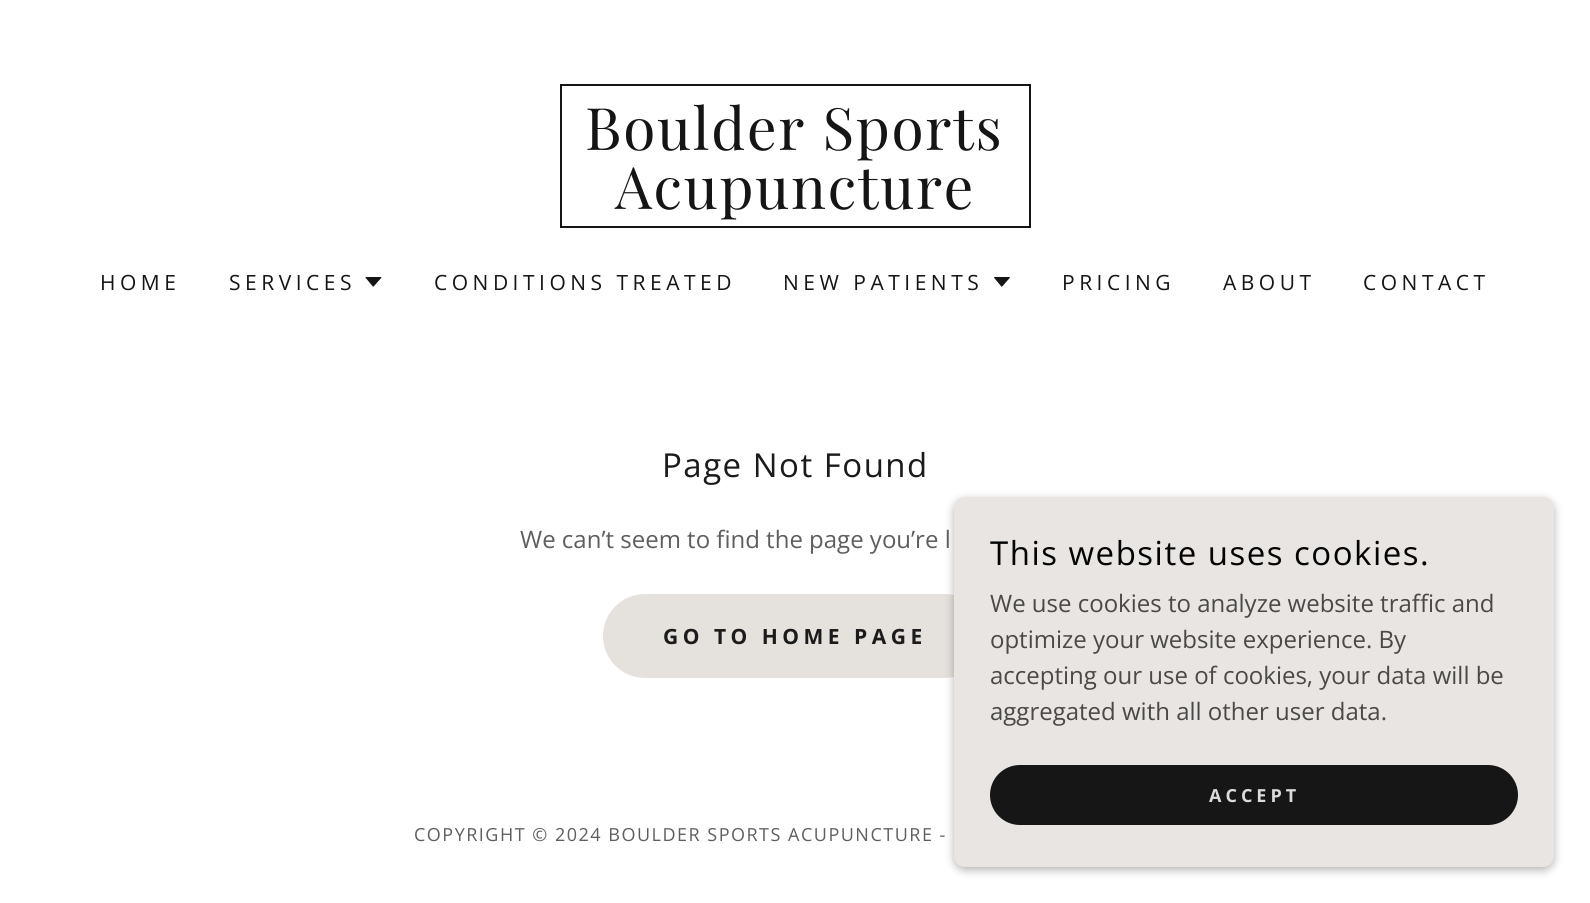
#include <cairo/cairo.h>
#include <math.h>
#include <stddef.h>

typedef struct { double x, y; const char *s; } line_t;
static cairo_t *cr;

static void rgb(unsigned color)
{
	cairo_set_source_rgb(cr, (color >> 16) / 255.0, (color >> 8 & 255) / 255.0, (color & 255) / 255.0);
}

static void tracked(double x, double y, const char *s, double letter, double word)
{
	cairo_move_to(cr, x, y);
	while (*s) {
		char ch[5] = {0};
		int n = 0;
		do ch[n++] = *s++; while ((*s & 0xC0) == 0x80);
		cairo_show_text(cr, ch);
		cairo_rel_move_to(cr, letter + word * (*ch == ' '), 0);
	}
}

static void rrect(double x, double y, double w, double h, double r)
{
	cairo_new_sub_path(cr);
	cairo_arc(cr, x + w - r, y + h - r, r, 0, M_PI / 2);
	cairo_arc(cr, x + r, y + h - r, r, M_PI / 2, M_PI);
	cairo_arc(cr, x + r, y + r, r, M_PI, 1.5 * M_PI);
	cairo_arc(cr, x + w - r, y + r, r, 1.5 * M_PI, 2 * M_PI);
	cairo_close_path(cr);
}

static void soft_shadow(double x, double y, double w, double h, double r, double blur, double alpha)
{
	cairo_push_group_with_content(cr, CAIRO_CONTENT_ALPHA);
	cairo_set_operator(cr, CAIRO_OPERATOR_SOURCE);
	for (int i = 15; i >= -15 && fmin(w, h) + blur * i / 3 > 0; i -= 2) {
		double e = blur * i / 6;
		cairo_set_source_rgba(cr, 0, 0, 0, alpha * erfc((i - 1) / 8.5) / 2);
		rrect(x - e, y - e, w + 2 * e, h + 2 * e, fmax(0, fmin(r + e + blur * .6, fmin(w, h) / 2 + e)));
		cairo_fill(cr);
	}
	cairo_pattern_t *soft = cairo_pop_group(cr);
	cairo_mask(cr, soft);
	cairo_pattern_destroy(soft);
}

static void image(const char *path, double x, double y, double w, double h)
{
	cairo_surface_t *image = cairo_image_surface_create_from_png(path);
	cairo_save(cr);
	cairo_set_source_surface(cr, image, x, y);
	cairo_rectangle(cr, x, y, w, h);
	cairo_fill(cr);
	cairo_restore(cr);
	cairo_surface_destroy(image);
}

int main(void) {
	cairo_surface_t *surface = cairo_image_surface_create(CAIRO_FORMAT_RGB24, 1590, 903);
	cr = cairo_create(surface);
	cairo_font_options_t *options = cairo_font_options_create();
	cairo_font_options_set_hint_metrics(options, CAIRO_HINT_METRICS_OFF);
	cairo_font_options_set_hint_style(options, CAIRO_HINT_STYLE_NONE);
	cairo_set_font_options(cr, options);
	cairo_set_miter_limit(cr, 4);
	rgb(0xffffff);
	cairo_paint(cr);
	cairo_rectangle(cr, 561, 85, 469, 142);
	rgb(0x151515);
	cairo_stroke(cr);
	image("img/1.png", 365, 277, 17, 10);
	image("img/2.png", 994, 277, 16, 10);
	rgb(0xe5e2de);
	rrect(603, 594, 384, 84, 42);
	cairo_fill(cr);
	rgb(0x000000);
	soft_shadow(954, 500, 600, 370, 11, 4.5, 0.3);
	rgb(0xe8e5e2);
	rrect(954, 497, 600, 370, 11);
	cairo_fill(cr);
	rgb(0x161616);
	rrect(990, 765, 528, 60, 30);
	cairo_fill(cr);
	cairo_select_font_face(cr, "Playfair Display", CAIRO_FONT_SLANT_NORMAL, CAIRO_FONT_WEIGHT_NORMAL);
	cairo_set_font_size(cr, 58.5);
	rgb(0x151515);
	tracked(585, 150, "Boulder Sports", 1.75, 0);
	tracked(615, 209, "Acupuncture", 1.75, 0);
	cairo_select_font_face(cr, "Open Sans", CAIRO_FONT_SLANT_NORMAL, CAIRO_FONT_WEIGHT_NORMAL);
	cairo_set_font_size(cr, 21);
	{
		static const line_t items[] = {
			{100, 290, "HOME"},
			{229, 290, "SERVICES"},
			{434, 290, "CONDITIONS TREATED"},
			{783, 290, "NEW PATIENTS"},
			{1062, 290, "PRICING"},
			{1223, 290, "ABOUT"},
			{1363, 290, "CONTACT"},
		};
		for (size_t i = 0; i < sizeof items / sizeof *items; i++) {
			tracked(items[i].x, items[i].y, items[i].s, 4.5, 0);
		}
	}
	cairo_set_font_size(cr, 33);
	rgb(0x1b1b1b);
	tracked(662, 477, "Page Not Found", 1.5, 0);
	cairo_set_font_size(cr, 24);
	rgb(0x5e5e5e);
	cairo_move_to(cr, 520, 548);
	cairo_show_text(cr, "We can’t seem to find the page you’re l");
	cairo_select_font_face(cr, "Open Sans", CAIRO_FONT_SLANT_NORMAL, CAIRO_FONT_WEIGHT_BOLD);
	cairo_set_font_size(cr, 21);
	rgb(0x1b1b1b);
	tracked(663, 644, "GO TO HOME PAGE", 4.5, 0);
	cairo_select_font_face(cr, "Open Sans", CAIRO_FONT_SLANT_NORMAL, CAIRO_FONT_WEIGHT_NORMAL);
	cairo_set_font_size(cr, 33);
	rgb(0x040404);
	tracked(990, 565, "This website uses cookies.", 1.5, 0);
	cairo_set_font_size(cr, 24);
	rgb(0x4a4948);
	{
		static const line_t items[] = {
			{990, 612, "We use cookies to analyze website traffic and"},
			{990, 648, "optimize your website experience. By"},
			{990, 684, "accepting our use of cookies, your data will be"},
			{990, 720, "aggregated with all other user data."},
		};
		for (size_t i = 0; i < sizeof items / sizeof *items; i++) {
			cairo_move_to(cr, items[i].x, items[i].y);
			cairo_show_text(cr, items[i].s);
		}
	}
	cairo_select_font_face(cr, "Open Sans", CAIRO_FONT_SLANT_NORMAL, CAIRO_FONT_WEIGHT_BOLD);
	cairo_set_font_size(cr, 18);
	rgb(0xdbdbdb);
	tracked(1209, 802, "ACCEPT", 4, 0);
	cairo_select_font_face(cr, "Open Sans", CAIRO_FONT_SLANT_NORMAL, CAIRO_FONT_WEIGHT_NORMAL);
	rgb(0x5e5e5e);
	tracked(414, 841, "COPYRIGHT © 2024 BOULDER SPORTS ACUPUNCTURE -", 1.5, 0);
	cairo_surface_write_to_png(surface, "page.png");
	cairo_font_options_destroy(options);
	cairo_destroy(cr);
	cairo_surface_destroy(surface);
	return 0;
}
